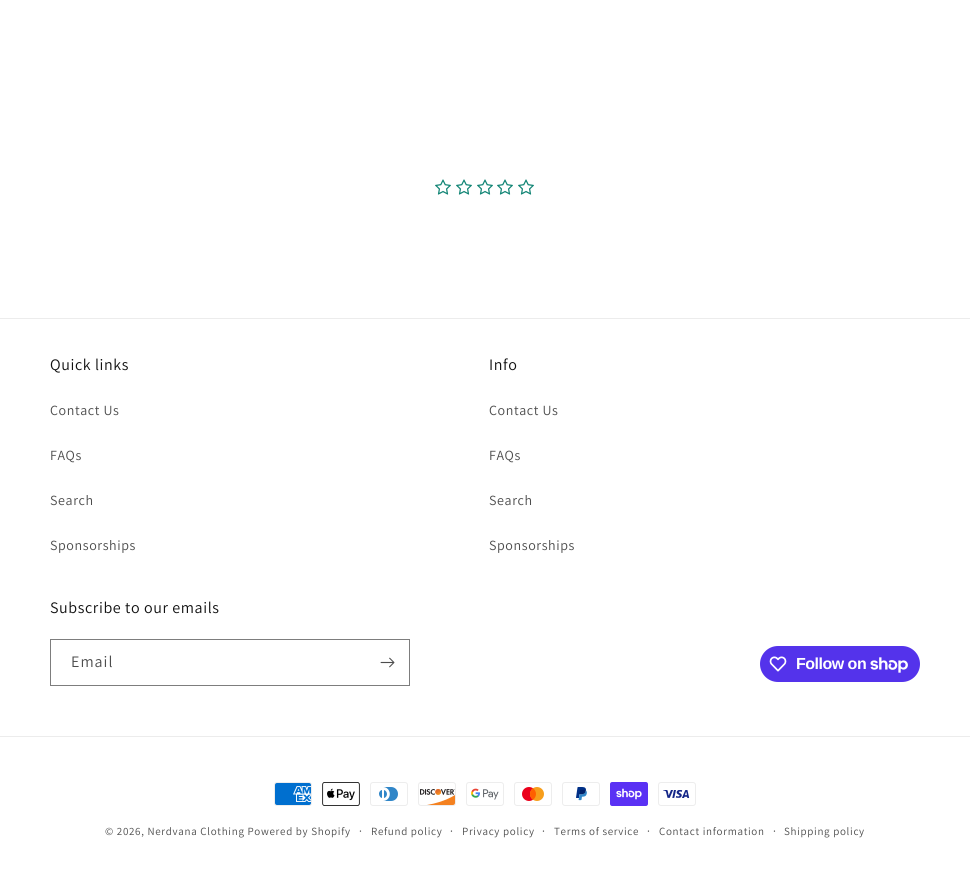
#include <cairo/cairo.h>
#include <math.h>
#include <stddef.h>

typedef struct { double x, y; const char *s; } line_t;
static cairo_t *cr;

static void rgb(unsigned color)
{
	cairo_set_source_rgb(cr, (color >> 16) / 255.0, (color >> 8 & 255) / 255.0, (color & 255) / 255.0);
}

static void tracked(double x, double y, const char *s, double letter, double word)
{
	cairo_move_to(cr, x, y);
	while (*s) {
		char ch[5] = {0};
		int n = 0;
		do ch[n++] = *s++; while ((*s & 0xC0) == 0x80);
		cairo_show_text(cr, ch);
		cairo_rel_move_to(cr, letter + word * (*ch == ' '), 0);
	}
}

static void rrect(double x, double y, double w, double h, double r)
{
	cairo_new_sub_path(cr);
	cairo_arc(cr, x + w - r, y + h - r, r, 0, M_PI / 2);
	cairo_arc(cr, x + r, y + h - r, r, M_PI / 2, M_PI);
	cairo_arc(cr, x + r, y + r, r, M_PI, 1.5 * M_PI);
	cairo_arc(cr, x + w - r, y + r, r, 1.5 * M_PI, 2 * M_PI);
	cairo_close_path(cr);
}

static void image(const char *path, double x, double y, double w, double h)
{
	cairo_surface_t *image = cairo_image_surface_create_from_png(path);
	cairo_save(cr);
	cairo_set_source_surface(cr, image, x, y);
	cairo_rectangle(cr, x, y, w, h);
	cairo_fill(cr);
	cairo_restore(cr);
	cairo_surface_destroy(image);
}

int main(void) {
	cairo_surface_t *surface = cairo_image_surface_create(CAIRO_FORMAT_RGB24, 970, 877);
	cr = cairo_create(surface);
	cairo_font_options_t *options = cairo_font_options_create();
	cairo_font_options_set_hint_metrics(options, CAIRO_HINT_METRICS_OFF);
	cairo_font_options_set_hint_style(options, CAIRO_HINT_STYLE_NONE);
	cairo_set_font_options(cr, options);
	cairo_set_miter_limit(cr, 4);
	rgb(0xffffff);
	cairo_paint(cr);
	image("img/1.png", 435, 179, 16, 16);
	image("img/1.png", 456, 179, 16, 16);
	image("img/1.png", 477, 179, 16, 16);
	image("img/1.png", 497, 179, 16, 16);
	image("img/1.png", 518, 179, 16, 16);
	rgb(0xececec);
	cairo_rectangle(cr, 0, 318, 970, 1);
	cairo_fill(cr);
	cairo_rectangle(cr, 50.5, 639.5, 359, 46);
	rgb(0x7d7d7d);
	cairo_set_line_width(cr, 1);
	cairo_stroke(cr);
	image("img/2.png", 380, 657, 15, 11);
	rgb(0x5433eb);
	rrect(760, 646, 160, 36, 18);
	cairo_fill(cr);
	image("img/3.png", 769, 656, 18, 16);
	image("img/4.png", 870, 657, 38, 16);
	rgb(0xececec);
	cairo_rectangle(cr, 0, 736, 970, 1);
	cairo_fill(cr);
	image("img/5.png", 274, 782, 38, 24);
	image("img/6.png", 322, 782, 38, 24);
	image("img/7.png", 370, 782, 38, 24);
	image("img/8.png", 418, 782, 38, 24);
	image("img/9.png", 466, 782, 38, 24);
	image("img/10.png", 514, 782, 38, 24);
	image("img/11.png", 562, 782, 38, 24);
	image("img/12.png", 610, 782, 38, 24);
	image("img/13.png", 658, 782, 38, 24);
	cairo_select_font_face(cr, "Assistant", CAIRO_FONT_SLANT_NORMAL, CAIRO_FONT_WEIGHT_NORMAL);
	cairo_set_font_size(cr, 16);
	rgb(0x121212);
	tracked(50, 370, "Quick links", 0.6, 0);
	cairo_set_font_size(cr, 14);
	rgb(0x4d4d4d);
	{
		static const line_t items[] = {
			{50, 415, "Contact Us"},
			{50, 460, "FAQs"},
			{50, 505, "Search"},
			{50, 550, "Sponsorships"},
		};
		for (size_t i = 0; i < sizeof items / sizeof *items; i++) {
			tracked(items[i].x, items[i].y, items[i].s, 0.6, 0);
		}
	}
	cairo_set_font_size(cr, 16);
	rgb(0x121212);
	tracked(489, 370, "Info", 0.6, 0);
	cairo_set_font_size(cr, 14);
	rgb(0x4d4d4d);
	{
		static const line_t items[] = {
			{489, 415, "Contact Us"},
			{489, 460, "FAQs"},
			{489, 505, "Search"},
			{489, 550, "Sponsorships"},
		};
		for (size_t i = 0; i < sizeof items / sizeof *items; i++) {
			tracked(items[i].x, items[i].y, items[i].s, 0.6, 0);
		}
	}
	cairo_set_font_size(cr, 16);
	rgb(0x121212);
	tracked(50, 613, "Subscribe to our emails", 0.6, 0);
	rgb(0x4d4d4d);
	tracked(71, 667, "Email", 1, 0);
	cairo_select_font_face(cr, "Liberation Sans", CAIRO_FONT_SLANT_NORMAL, CAIRO_FONT_WEIGHT_BOLD);
	rgb(0xffffff);
	tracked(796, 669, "Follow on", -0.5, 0);
	cairo_select_font_face(cr, "Assistant", CAIRO_FONT_SLANT_NORMAL, CAIRO_FONT_WEIGHT_NORMAL);
	cairo_set_font_size(cr, 11);
	rgb(0x4d4d4d);
	tracked(105, 835, "© 2026, Nerdvana Clothing Powered by Shopify", 0.7, 0);
	cairo_set_font_size(cr, 12);
	tracked(359, 835, "·", 0.7, 0);
	cairo_set_font_size(cr, 11);
	tracked(371, 835, "Refund policy", 0.7, 0);
	cairo_set_font_size(cr, 12);
	tracked(450, 835, "·", 0.7, 0);
	cairo_set_font_size(cr, 11);
	tracked(462, 835, "Privacy policy", 0.7, 0);
	cairo_set_font_size(cr, 12);
	tracked(542, 835, "·", 0.7, 0);
	cairo_set_font_size(cr, 11);
	tracked(554, 835, "Terms of service", 0.7, 0);
	cairo_set_font_size(cr, 12);
	tracked(647, 835, "·", 0.7, 0);
	cairo_set_font_size(cr, 11);
	tracked(659, 835, "Contact information", 0.7, 0);
	cairo_set_font_size(cr, 12);
	tracked(773, 835, "·", 0.7, 0);
	cairo_set_font_size(cr, 11);
	tracked(784, 835, "Shipping policy", 0.7, 0);
	cairo_surface_write_to_png(surface, "page.png");
	cairo_font_options_destroy(options);
	cairo_destroy(cr);
	cairo_surface_destroy(surface);
	return 0;
}
